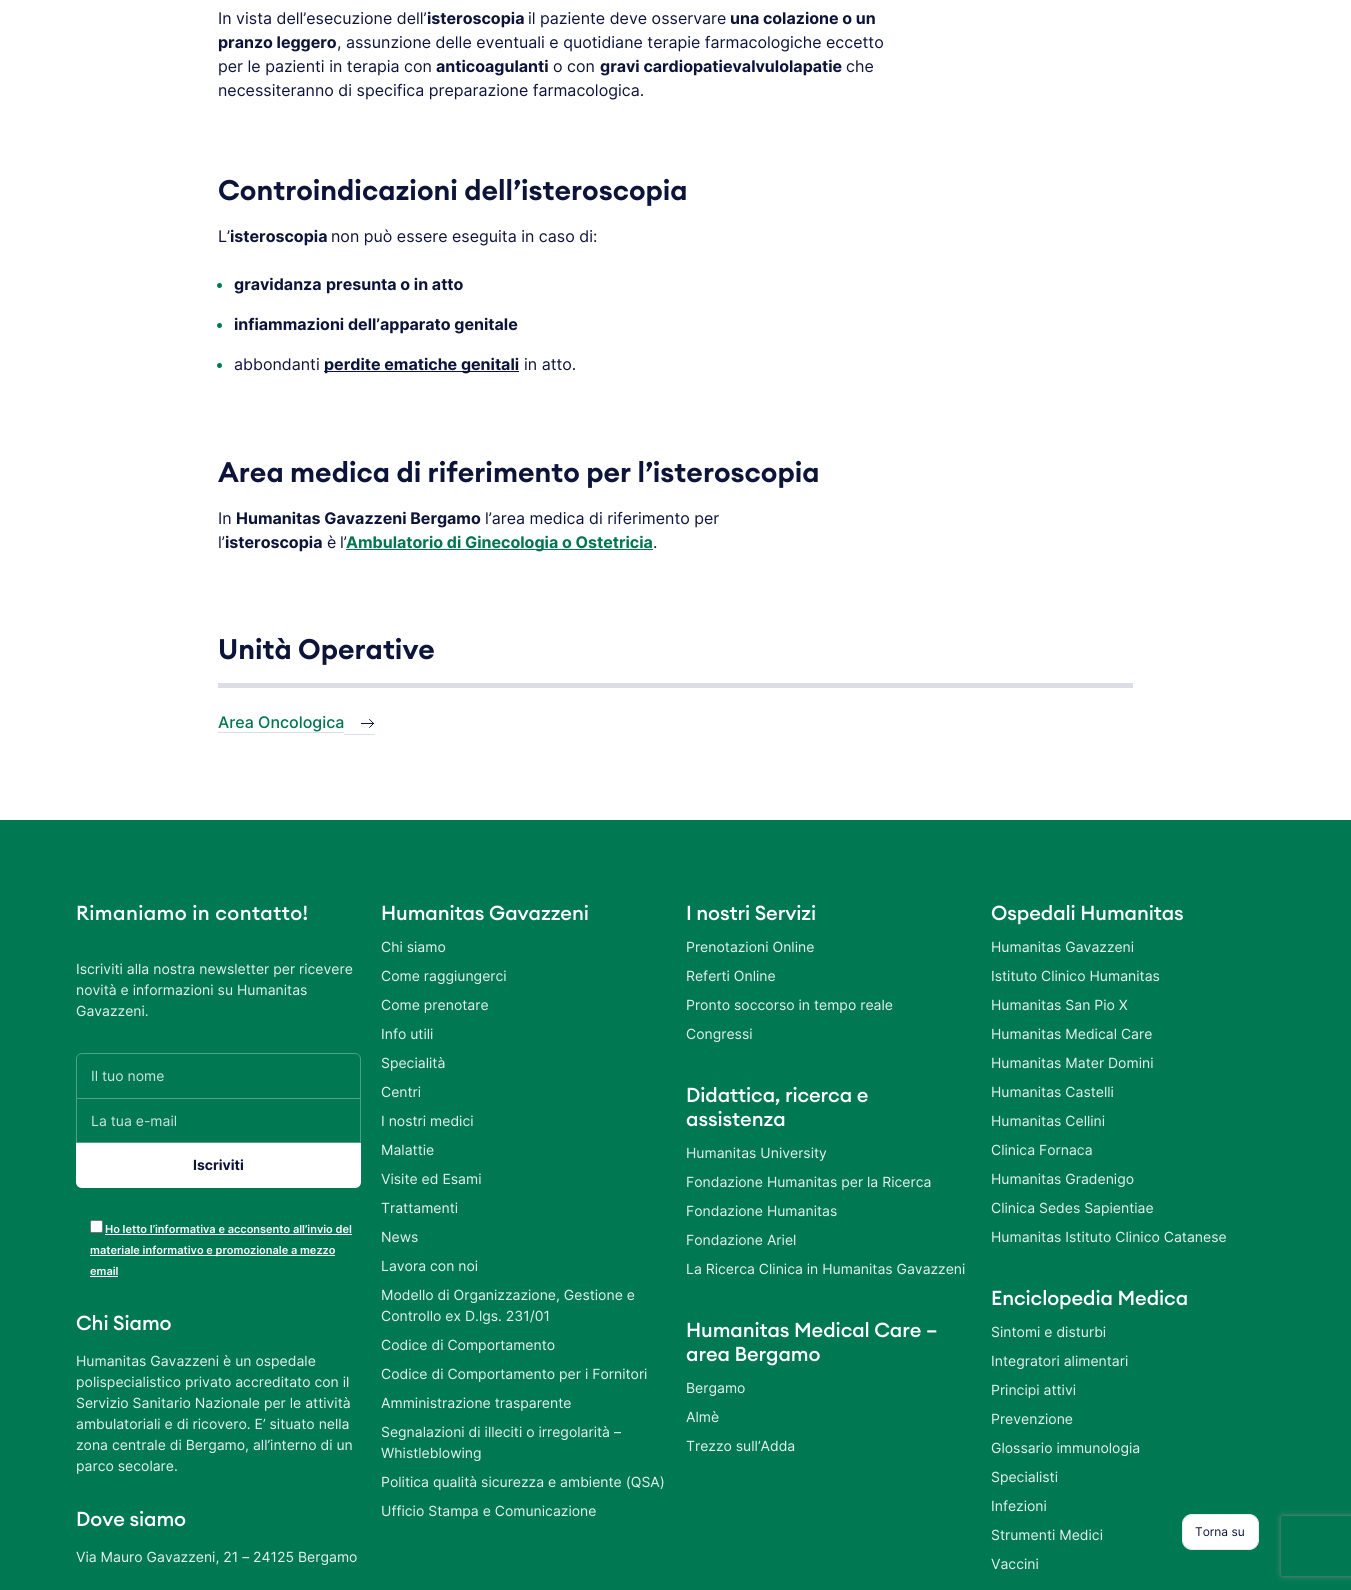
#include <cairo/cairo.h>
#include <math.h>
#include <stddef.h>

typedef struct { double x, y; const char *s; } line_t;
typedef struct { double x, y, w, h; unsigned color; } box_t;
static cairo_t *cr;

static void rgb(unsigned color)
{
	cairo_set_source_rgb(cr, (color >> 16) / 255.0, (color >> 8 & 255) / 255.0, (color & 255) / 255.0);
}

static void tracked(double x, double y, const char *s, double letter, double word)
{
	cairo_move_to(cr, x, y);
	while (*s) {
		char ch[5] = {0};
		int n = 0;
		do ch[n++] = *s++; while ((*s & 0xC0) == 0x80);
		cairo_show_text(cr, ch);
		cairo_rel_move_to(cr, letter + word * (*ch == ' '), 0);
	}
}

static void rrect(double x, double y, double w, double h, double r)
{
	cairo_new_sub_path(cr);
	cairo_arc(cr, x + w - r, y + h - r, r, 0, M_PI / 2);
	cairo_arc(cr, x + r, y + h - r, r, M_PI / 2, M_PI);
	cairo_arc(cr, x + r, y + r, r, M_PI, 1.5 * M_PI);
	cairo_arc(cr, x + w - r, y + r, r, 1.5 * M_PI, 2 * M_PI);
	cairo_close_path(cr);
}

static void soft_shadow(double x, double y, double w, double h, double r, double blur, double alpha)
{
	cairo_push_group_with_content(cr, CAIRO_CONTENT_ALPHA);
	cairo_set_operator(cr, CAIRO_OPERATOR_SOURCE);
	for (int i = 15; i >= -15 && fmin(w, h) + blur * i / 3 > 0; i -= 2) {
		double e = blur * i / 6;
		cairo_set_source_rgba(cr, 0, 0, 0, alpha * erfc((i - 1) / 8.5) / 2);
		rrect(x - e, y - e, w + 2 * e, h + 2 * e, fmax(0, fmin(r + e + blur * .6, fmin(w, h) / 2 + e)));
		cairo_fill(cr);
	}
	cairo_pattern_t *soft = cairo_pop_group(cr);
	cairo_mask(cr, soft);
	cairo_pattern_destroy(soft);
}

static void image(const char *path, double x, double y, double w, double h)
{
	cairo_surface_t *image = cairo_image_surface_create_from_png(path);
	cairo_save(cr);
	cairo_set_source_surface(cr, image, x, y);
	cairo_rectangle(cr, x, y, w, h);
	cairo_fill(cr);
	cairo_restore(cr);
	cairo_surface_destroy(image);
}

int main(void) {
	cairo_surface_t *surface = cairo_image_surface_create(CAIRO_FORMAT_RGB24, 1351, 1590);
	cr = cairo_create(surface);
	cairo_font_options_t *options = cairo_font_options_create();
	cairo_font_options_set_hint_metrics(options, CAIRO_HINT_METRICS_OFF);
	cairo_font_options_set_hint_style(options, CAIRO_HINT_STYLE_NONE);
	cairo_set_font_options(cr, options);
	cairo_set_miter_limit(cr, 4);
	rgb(0xffffff);
	cairo_paint(cr);
	rgb(0x007953);
	cairo_arc(cr, 219.5, 285.5, 2.5, 0, 2 * M_PI);
	cairo_fill(cr);
	cairo_arc(cr, 219.5, 325.5, 2.5, 0, 2 * M_PI);
	cairo_fill(cr);
	cairo_arc(cr, 219.5, 365.5, 2.5, 0, 2 * M_PI);
	cairo_fill(cr);
	{
		static const box_t items[] = {
			{324, 371, 195, 1, 0x0c143a},
			{346, 549, 307, 1, 0x00764e},
			{218, 683, 915, 5, 0xdbdee6},
			{218, 732, 126, 1, 0xdbdee6},
			{344, 734, 31, 1, 0xdbdee6},
		};
		for (size_t i = 0; i < sizeof items / sizeof *items; i++) {
			rgb(items[i].color);
			cairo_rectangle(cr, items[i].x, items[i].y, items[i].w, items[i].h);
			cairo_fill(cr);
		}
	}
	image("img/1.png", 361, 719, 14, 9);
	rgb(0x007953);
	cairo_rectangle(cr, 0, 820, 1351, 770);
	cairo_fill(cr);
	rgb(0xffffff);
	rrect(1182.5, 1514.5, 76, 35, 9.5);
	cairo_fill_preserve(cr);
	rgb(0xeaeaea);
	cairo_set_line_width(cr, 1);
	cairo_stroke(cr);
	rgb(0x4da187);
	cairo_set_fill_rule(cr, CAIRO_FILL_RULE_EVEN_ODD);
	cairo_new_path(cr);
	cairo_move_to(cr, 82, 1053);
	cairo_line_to(cr, 355, 1053);
	cairo_curve_to(cr, 358, 1053, 361, 1056, 361, 1059);
	cairo_line_to(cr, 361, 1098);
	cairo_line_to(cr, 76, 1098);
	cairo_line_to(cr, 76, 1059);
	cairo_curve_to(cr, 76, 1056, 79, 1053, 82, 1053);
	cairo_close_path(cr);
	cairo_move_to(cr, 82, 1054);
	cairo_line_to(cr, 355, 1054);
	cairo_curve_to(cr, 358, 1054, 360, 1056, 360, 1059);
	cairo_line_to(cr, 360, 1098);
	cairo_line_to(cr, 77, 1098);
	cairo_line_to(cr, 77, 1059);
	cairo_curve_to(cr, 77, 1056, 79, 1054, 82, 1054);
	cairo_close_path(cr);
	cairo_fill(cr);
	cairo_rectangle(cr, 76.5, 1098.5, 284, 44);
	cairo_stroke(cr);
	rgb(0xffffff);
	cairo_new_path(cr);
	cairo_move_to(cr, 76, 1143);
	cairo_line_to(cr, 361, 1143);
	cairo_line_to(cr, 361, 1182);
	cairo_curve_to(cr, 361, 1185.5, 358.5, 1188, 355, 1188);
	cairo_line_to(cr, 82, 1188);
	cairo_curve_to(cr, 78.5, 1188, 76, 1185.5, 76, 1182);
	cairo_close_path(cr);
	cairo_fill(cr);
	rrect(90.5, 1220.5, 12, 12, 1.5);
	cairo_fill_preserve(cr);
	rgb(0x767676);
	cairo_stroke(cr);
	{
		static const box_t items[] = {
			{105, 1234, 247, 1, 0xffffff},
			{90, 1255, 245, 1, 0xffffff},
			{90, 1276, 28, 1, 0xffffff},
		};
		for (size_t i = 0; i < sizeof items / sizeof *items; i++) {
			rgb(items[i].color);
			cairo_rectangle(cr, items[i].x, items[i].y, items[i].w, items[i].h);
			cairo_fill(cr);
		}
	}
	cairo_save(cr);
	cairo_new_path(cr);
	cairo_move_to(cr, 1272, 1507);
	cairo_line_to(cr, 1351, 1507);
	cairo_line_to(cr, 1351, 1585);
	cairo_line_to(cr, 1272, 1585);
	cairo_close_path(cr);
	cairo_move_to(cr, 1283, 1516);
	cairo_line_to(cr, 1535, 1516);
	cairo_curve_to(cr, 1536, 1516, 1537, 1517, 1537, 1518);
	cairo_line_to(cr, 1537, 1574);
	cairo_curve_to(cr, 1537, 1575, 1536, 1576, 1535, 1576);
	cairo_line_to(cr, 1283, 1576);
	cairo_curve_to(cr, 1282, 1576, 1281, 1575, 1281, 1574);
	cairo_line_to(cr, 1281, 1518);
	cairo_curve_to(cr, 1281, 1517, 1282, 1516, 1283, 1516);
	cairo_close_path(cr);
	cairo_clip(cr);
	rgb(0x808080);
	soft_shadow(1281, 1516, 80, 60, 2, 2.5, 1);
	cairo_restore(cr);
	cairo_select_font_face(cr, "Inter", CAIRO_FONT_SLANT_NORMAL, CAIRO_FONT_WEIGHT_NORMAL);
	cairo_set_font_size(cr, 16);
	rgb(0x0c143a);
	cairo_move_to(cr, 218, 24);
	cairo_show_text(cr, "In vista dell’esecuzione dell’");
	cairo_select_font_face(cr, "Inter", CAIRO_FONT_SLANT_NORMAL, CAIRO_FONT_WEIGHT_BOLD);
	cairo_move_to(cr, 427, 24);
	cairo_show_text(cr, "isteroscopia");
	cairo_select_font_face(cr, "Inter", CAIRO_FONT_SLANT_NORMAL, CAIRO_FONT_WEIGHT_NORMAL);
	cairo_move_to(cr, 528, 24);
	cairo_show_text(cr, "il paziente deve osservare");
	cairo_select_font_face(cr, "Inter", CAIRO_FONT_SLANT_NORMAL, CAIRO_FONT_WEIGHT_BOLD);
	cairo_move_to(cr, 730, 24);
	cairo_show_text(cr, "una colazione o un");
	cairo_move_to(cr, 218, 48);
	cairo_show_text(cr, "pranzo leggero");
	cairo_select_font_face(cr, "Inter", CAIRO_FONT_SLANT_NORMAL, CAIRO_FONT_WEIGHT_NORMAL);
	cairo_move_to(cr, 337, 48);
	cairo_show_text(cr, ", assunzione delle eventuali e quotidiane terapie farmacologiche eccetto");
	cairo_move_to(cr, 218, 72);
	cairo_show_text(cr, "per le pazienti in terapia con");
	cairo_select_font_face(cr, "Inter", CAIRO_FONT_SLANT_NORMAL, CAIRO_FONT_WEIGHT_BOLD);
	cairo_move_to(cr, 436, 72);
	cairo_show_text(cr, "anticoagulanti");
	cairo_select_font_face(cr, "Inter", CAIRO_FONT_SLANT_NORMAL, CAIRO_FONT_WEIGHT_NORMAL);
	cairo_move_to(cr, 553, 72);
	cairo_show_text(cr, "o con");
	cairo_select_font_face(cr, "Inter", CAIRO_FONT_SLANT_NORMAL, CAIRO_FONT_WEIGHT_BOLD);
	cairo_move_to(cr, 600, 72);
	cairo_show_text(cr, "gravi cardiopatievalvulolapatie");
	cairo_select_font_face(cr, "Inter", CAIRO_FONT_SLANT_NORMAL, CAIRO_FONT_WEIGHT_NORMAL);
	cairo_move_to(cr, 846, 72);
	cairo_show_text(cr, "che");
	cairo_move_to(cr, 218, 96);
	cairo_show_text(cr, "necessiteranno di specifica preparazione farmacologica.");
	cairo_select_font_face(cr, "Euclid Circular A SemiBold", CAIRO_FONT_SLANT_NORMAL, CAIRO_FONT_WEIGHT_NORMAL);
	cairo_set_font_size(cr, 28);
	cairo_move_to(cr, 218, 200);
	cairo_show_text(cr, "Controindicazioni dell’isteroscopia");
	cairo_select_font_face(cr, "Inter", CAIRO_FONT_SLANT_NORMAL, CAIRO_FONT_WEIGHT_NORMAL);
	cairo_set_font_size(cr, 16);
	cairo_move_to(cr, 218, 242);
	cairo_show_text(cr, "L’");
	cairo_select_font_face(cr, "Inter", CAIRO_FONT_SLANT_NORMAL, CAIRO_FONT_WEIGHT_BOLD);
	cairo_move_to(cr, 230, 242);
	cairo_show_text(cr, "isteroscopia");
	cairo_select_font_face(cr, "Inter", CAIRO_FONT_SLANT_NORMAL, CAIRO_FONT_WEIGHT_NORMAL);
	cairo_move_to(cr, 331, 242);
	cairo_show_text(cr, "non può essere eseguita in caso di:");
	cairo_select_font_face(cr, "Inter", CAIRO_FONT_SLANT_NORMAL, CAIRO_FONT_WEIGHT_BOLD);
	{
		static const line_t items[] = {
			{234, 290, "gravidanza"},
			{326, 290, "presunta o in atto"},
			{234, 330, "infiammazioni dell’apparato genitale"},
		};
		for (size_t i = 0; i < sizeof items / sizeof *items; i++) {
			cairo_move_to(cr, items[i].x, items[i].y);
			cairo_show_text(cr, items[i].s);
		}
	}
	cairo_select_font_face(cr, "Inter", CAIRO_FONT_SLANT_NORMAL, CAIRO_FONT_WEIGHT_NORMAL);
	cairo_move_to(cr, 234, 370);
	cairo_show_text(cr, "abbondanti");
	cairo_select_font_face(cr, "Inter", CAIRO_FONT_SLANT_NORMAL, CAIRO_FONT_WEIGHT_BOLD);
	cairo_move_to(cr, 324, 370);
	cairo_show_text(cr, "perdite ematiche genitali");
	cairo_select_font_face(cr, "Inter", CAIRO_FONT_SLANT_NORMAL, CAIRO_FONT_WEIGHT_NORMAL);
	cairo_move_to(cr, 524, 370);
	cairo_show_text(cr, "in atto.");
	cairo_select_font_face(cr, "Euclid Circular A SemiBold", CAIRO_FONT_SLANT_NORMAL, CAIRO_FONT_WEIGHT_NORMAL);
	cairo_set_font_size(cr, 28);
	cairo_move_to(cr, 218, 482);
	cairo_show_text(cr, "Area medica di riferimento per l’isteroscopia");
	cairo_select_font_face(cr, "Inter", CAIRO_FONT_SLANT_NORMAL, CAIRO_FONT_WEIGHT_NORMAL);
	cairo_set_font_size(cr, 16);
	cairo_move_to(cr, 218, 524);
	cairo_show_text(cr, "In");
	cairo_select_font_face(cr, "Inter", CAIRO_FONT_SLANT_NORMAL, CAIRO_FONT_WEIGHT_BOLD);
	cairo_move_to(cr, 236, 524);
	cairo_show_text(cr, "Humanitas Gavazzeni Bergamo");
	cairo_select_font_face(cr, "Inter", CAIRO_FONT_SLANT_NORMAL, CAIRO_FONT_WEIGHT_NORMAL);
	cairo_move_to(cr, 485, 524);
	cairo_show_text(cr, "l’area medica di riferimento per");
	cairo_move_to(cr, 218, 548);
	cairo_show_text(cr, "l’");
	cairo_select_font_face(cr, "Inter", CAIRO_FONT_SLANT_NORMAL, CAIRO_FONT_WEIGHT_BOLD);
	cairo_move_to(cr, 225, 548);
	cairo_show_text(cr, "isteroscopia");
	cairo_select_font_face(cr, "Inter", CAIRO_FONT_SLANT_NORMAL, CAIRO_FONT_WEIGHT_NORMAL);
	cairo_move_to(cr, 327, 548);
	cairo_show_text(cr, "è");
	cairo_move_to(cr, 340, 548);
	cairo_show_text(cr, "l’");
	cairo_select_font_face(cr, "Inter", CAIRO_FONT_SLANT_NORMAL, CAIRO_FONT_WEIGHT_BOLD);
	rgb(0x00764e);
	cairo_move_to(cr, 346, 548);
	cairo_show_text(cr, "Ambulatorio di Ginecologia o Ostetricia");
	cairo_select_font_face(cr, "Inter", CAIRO_FONT_SLANT_NORMAL, CAIRO_FONT_WEIGHT_NORMAL);
	rgb(0x0c143a);
	cairo_move_to(cr, 653, 548);
	cairo_show_text(cr, ".");
	cairo_select_font_face(cr, "Euclid Circular A SemiBold", CAIRO_FONT_SLANT_NORMAL, CAIRO_FONT_WEIGHT_NORMAL);
	cairo_set_font_size(cr, 28);
	cairo_move_to(cr, 218, 659);
	cairo_show_text(cr, "Unità Operative");
	cairo_select_font_face(cr, "Inter Medium", CAIRO_FONT_SLANT_NORMAL, CAIRO_FONT_WEIGHT_NORMAL);
	cairo_set_font_size(cr, 16);
	rgb(0x00764e);
	cairo_move_to(cr, 218, 728);
	cairo_show_text(cr, "Area Oncologica");
	cairo_select_font_face(cr, "Inter", CAIRO_FONT_SLANT_NORMAL, CAIRO_FONT_WEIGHT_NORMAL);
	cairo_set_font_size(cr, 12);
	rgb(0x0c143a);
	cairo_move_to(cr, 1195, 1536);
	cairo_show_text(cr, "Torna su");
	cairo_select_font_face(cr, "Euclid Circular A Medium", CAIRO_FONT_SLANT_NORMAL, CAIRO_FONT_WEIGHT_NORMAL);
	cairo_set_font_size(cr, 20);
	rgb(0xffffff);
	tracked(76, 920, "Rimaniamo in contatto!", 0.4, 0);
	cairo_select_font_face(cr, "Inter", CAIRO_FONT_SLANT_NORMAL, CAIRO_FONT_WEIGHT_NORMAL);
	cairo_set_font_size(cr, 14);
	rgb(0xe6f2ee);
	{
		static const line_t items[] = {
			{76, 974, "Iscriviti alla nostra newsletter per ricevere"},
			{76, 995, "novità e informazioni su Humanitas"},
			{76, 1016, "Gavazzeni."},
		};
		for (size_t i = 0; i < sizeof items / sizeof *items; i++) {
			cairo_move_to(cr, items[i].x, items[i].y);
			cairo_show_text(cr, items[i].s);
		}
	}
	rgb(0xcce4dd);
	cairo_move_to(cr, 91, 1081);
	cairo_show_text(cr, "Il tuo nome");
	cairo_move_to(cr, 91, 1126);
	cairo_show_text(cr, "La tua e-mail");
	cairo_select_font_face(cr, "Inter", CAIRO_FONT_SLANT_NORMAL, CAIRO_FONT_WEIGHT_BOLD);
	rgb(0x0c143a);
	cairo_move_to(cr, 193, 1170);
	cairo_show_text(cr, "Iscriviti");
	cairo_select_font_face(cr, "Inter SemiBold", CAIRO_FONT_SLANT_NORMAL, CAIRO_FONT_WEIGHT_NORMAL);
	cairo_set_font_size(cr, 11);
	rgb(0xffffff);
	{
		static const line_t items[] = {
			{105, 1233, "Ho letto l’informativa e acconsento all’invio del"},
			{90, 1254, "materiale informativo e promozionale a mezzo"},
			{90, 1275, "email"},
		};
		for (size_t i = 0; i < sizeof items / sizeof *items; i++) {
			cairo_move_to(cr, items[i].x, items[i].y);
			cairo_show_text(cr, items[i].s);
		}
	}
	cairo_select_font_face(cr, "Euclid Circular A Medium", CAIRO_FONT_SLANT_NORMAL, CAIRO_FONT_WEIGHT_NORMAL);
	cairo_set_font_size(cr, 20);
	tracked(76, 1330, "Chi Siamo", -0.1, 0);
	cairo_select_font_face(cr, "Inter", CAIRO_FONT_SLANT_NORMAL, CAIRO_FONT_WEIGHT_NORMAL);
	cairo_set_font_size(cr, 14);
	rgb(0xe6f2ee);
	{
		static const line_t items[] = {
			{76, 1366, "Humanitas Gavazzeni è un ospedale"},
			{76, 1387, "polispecialistico privato accreditato con il"},
			{76, 1408, "Servizio Sanitario Nazionale per le attività"},
			{76, 1429, "ambulatoriali e di ricovero. E’ situato nella"},
			{76, 1450, "zona centrale di Bergamo, all’interno di un"},
			{76, 1471, "parco secolare."},
		};
		for (size_t i = 0; i < sizeof items / sizeof *items; i++) {
			cairo_move_to(cr, items[i].x, items[i].y);
			cairo_show_text(cr, items[i].s);
		}
	}
	cairo_select_font_face(cr, "Euclid Circular A Medium", CAIRO_FONT_SLANT_NORMAL, CAIRO_FONT_WEIGHT_NORMAL);
	cairo_set_font_size(cr, 20);
	rgb(0xffffff);
	tracked(76, 1526, "Dove siamo", -0.1, 0);
	cairo_select_font_face(cr, "Inter", CAIRO_FONT_SLANT_NORMAL, CAIRO_FONT_WEIGHT_NORMAL);
	cairo_set_font_size(cr, 14);
	rgb(0xe6f2ee);
	cairo_move_to(cr, 76, 1562);
	cairo_show_text(cr, "Via Mauro Gavazzeni, 21 – 24125 Bergamo");
	cairo_select_font_face(cr, "Euclid Circular A Medium", CAIRO_FONT_SLANT_NORMAL, CAIRO_FONT_WEIGHT_NORMAL);
	cairo_set_font_size(cr, 20);
	rgb(0xffffff);
	tracked(381, 920, "Humanitas Gavazzeni", -0.1, 0);
	cairo_select_font_face(cr, "Inter", CAIRO_FONT_SLANT_NORMAL, CAIRO_FONT_WEIGHT_NORMAL);
	cairo_set_font_size(cr, 14);
	rgb(0xe6f2ee);
	{
		static const line_t items[] = {
			{381, 952, "Chi siamo"},
			{381, 981, "Come raggiungerci"},
			{381, 1010, "Come prenotare"},
			{381, 1039, "Info utili"},
			{381, 1068, "Specialità"},
			{381, 1097, "Centri"},
			{381, 1126, "I nostri medici"},
			{381, 1155, "Malattie"},
			{381, 1184, "Visite ed Esami"},
			{381, 1213, "Trattamenti"},
			{381, 1242, "News"},
			{381, 1271, "Lavora con noi"},
			{381, 1300, "Modello di Organizzazione, Gestione e"},
			{381, 1321, "Controllo ex D.lgs. 231/01"},
			{381, 1350, "Codice di Comportamento"},
			{381, 1379, "Codice di Comportamento per i Fornitori"},
			{381, 1408, "Amministrazione trasparente"},
			{381, 1437, "Segnalazioni di illeciti o irregolarità –"},
			{381, 1458, "Whistleblowing"},
			{381, 1487, "Politica qualità sicurezza e ambiente (QSA)"},
			{381, 1516, "Ufficio Stampa e Comunicazione"},
		};
		for (size_t i = 0; i < sizeof items / sizeof *items; i++) {
			cairo_move_to(cr, items[i].x, items[i].y);
			cairo_show_text(cr, items[i].s);
		}
	}
	cairo_select_font_face(cr, "Euclid Circular A Medium", CAIRO_FONT_SLANT_NORMAL, CAIRO_FONT_WEIGHT_NORMAL);
	cairo_set_font_size(cr, 20);
	rgb(0xffffff);
	tracked(686, 920, "I nostri Servizi", -0.1, 0);
	cairo_select_font_face(cr, "Inter", CAIRO_FONT_SLANT_NORMAL, CAIRO_FONT_WEIGHT_NORMAL);
	cairo_set_font_size(cr, 14);
	rgb(0xe6f2ee);
	{
		static const line_t items[] = {
			{686, 952, "Prenotazioni Online"},
			{686, 981, "Referti Online"},
			{686, 1010, "Pronto soccorso in tempo reale"},
			{686, 1039, "Congressi"},
		};
		for (size_t i = 0; i < sizeof items / sizeof *items; i++) {
			cairo_move_to(cr, items[i].x, items[i].y);
			cairo_show_text(cr, items[i].s);
		}
	}
	cairo_select_font_face(cr, "Euclid Circular A Medium", CAIRO_FONT_SLANT_NORMAL, CAIRO_FONT_WEIGHT_NORMAL);
	cairo_set_font_size(cr, 20);
	rgb(0xffffff);
	tracked(686, 1102, "Didattica, ricerca e", -0.1, 0);
	tracked(686, 1126, "assistenza", -0.1, 0);
	cairo_select_font_face(cr, "Inter", CAIRO_FONT_SLANT_NORMAL, CAIRO_FONT_WEIGHT_NORMAL);
	cairo_set_font_size(cr, 14);
	rgb(0xe6f2ee);
	{
		static const line_t items[] = {
			{686, 1158, "Humanitas University"},
			{686, 1187, "Fondazione Humanitas per la Ricerca"},
			{686, 1216, "Fondazione Humanitas"},
			{686, 1245, "Fondazione Ariel"},
			{686, 1274, "La Ricerca Clinica in Humanitas Gavazzeni"},
		};
		for (size_t i = 0; i < sizeof items / sizeof *items; i++) {
			cairo_move_to(cr, items[i].x, items[i].y);
			cairo_show_text(cr, items[i].s);
		}
	}
	cairo_select_font_face(cr, "Euclid Circular A Medium", CAIRO_FONT_SLANT_NORMAL, CAIRO_FONT_WEIGHT_NORMAL);
	cairo_set_font_size(cr, 20);
	rgb(0xffffff);
	tracked(686, 1337, "Humanitas Medical Care –", -0.1, 0);
	tracked(686, 1361, "area Bergamo", -0.1, 0);
	cairo_select_font_face(cr, "Inter", CAIRO_FONT_SLANT_NORMAL, CAIRO_FONT_WEIGHT_NORMAL);
	cairo_set_font_size(cr, 14);
	rgb(0xe6f2ee);
	{
		static const line_t items[] = {
			{686, 1393, "Bergamo"},
			{686, 1422, "Almè"},
			{686, 1451, "Trezzo sull’Adda"},
		};
		for (size_t i = 0; i < sizeof items / sizeof *items; i++) {
			cairo_move_to(cr, items[i].x, items[i].y);
			cairo_show_text(cr, items[i].s);
		}
	}
	cairo_select_font_face(cr, "Euclid Circular A Medium", CAIRO_FONT_SLANT_NORMAL, CAIRO_FONT_WEIGHT_NORMAL);
	cairo_set_font_size(cr, 20);
	rgb(0xffffff);
	tracked(991, 920, "Ospedali Humanitas", -0.1, 0);
	cairo_select_font_face(cr, "Inter", CAIRO_FONT_SLANT_NORMAL, CAIRO_FONT_WEIGHT_NORMAL);
	cairo_set_font_size(cr, 14);
	rgb(0xe6f2ee);
	{
		static const line_t items[] = {
			{991, 952, "Humanitas Gavazzeni"},
			{991, 981, "Istituto Clinico Humanitas"},
			{991, 1010, "Humanitas San Pio X"},
			{991, 1039, "Humanitas Medical Care"},
			{991, 1068, "Humanitas Mater Domini"},
			{991, 1097, "Humanitas Castelli"},
			{991, 1126, "Humanitas Cellini"},
			{991, 1155, "Clinica Fornaca"},
			{991, 1184, "Humanitas Gradenigo"},
			{991, 1213, "Clinica Sedes Sapientiae"},
			{991, 1242, "Humanitas Istituto Clinico Catanese"},
		};
		for (size_t i = 0; i < sizeof items / sizeof *items; i++) {
			cairo_move_to(cr, items[i].x, items[i].y);
			cairo_show_text(cr, items[i].s);
		}
	}
	cairo_select_font_face(cr, "Euclid Circular A Medium", CAIRO_FONT_SLANT_NORMAL, CAIRO_FONT_WEIGHT_NORMAL);
	cairo_set_font_size(cr, 20);
	rgb(0xffffff);
	tracked(991, 1305, "Enciclopedia Medica", -0.1, 0);
	cairo_select_font_face(cr, "Inter", CAIRO_FONT_SLANT_NORMAL, CAIRO_FONT_WEIGHT_NORMAL);
	cairo_set_font_size(cr, 14);
	rgb(0xe6f2ee);
	{
		static const line_t items[] = {
			{991, 1337, "Sintomi e disturbi"},
			{991, 1366, "Integratori alimentari"},
			{991, 1395, "Principi attivi"},
			{991, 1424, "Prevenzione"},
			{991, 1453, "Glossario immunologia"},
			{991, 1482, "Specialisti"},
			{991, 1511, "Infezioni"},
			{991, 1540, "Strumenti Medici"},
			{991, 1569, "Vaccini"},
		};
		for (size_t i = 0; i < sizeof items / sizeof *items; i++) {
			cairo_move_to(cr, items[i].x, items[i].y);
			cairo_show_text(cr, items[i].s);
		}
	}
	cairo_surface_write_to_png(surface, "page.png");
	cairo_font_options_destroy(options);
	cairo_destroy(cr);
	cairo_surface_destroy(surface);
	return 0;
}
